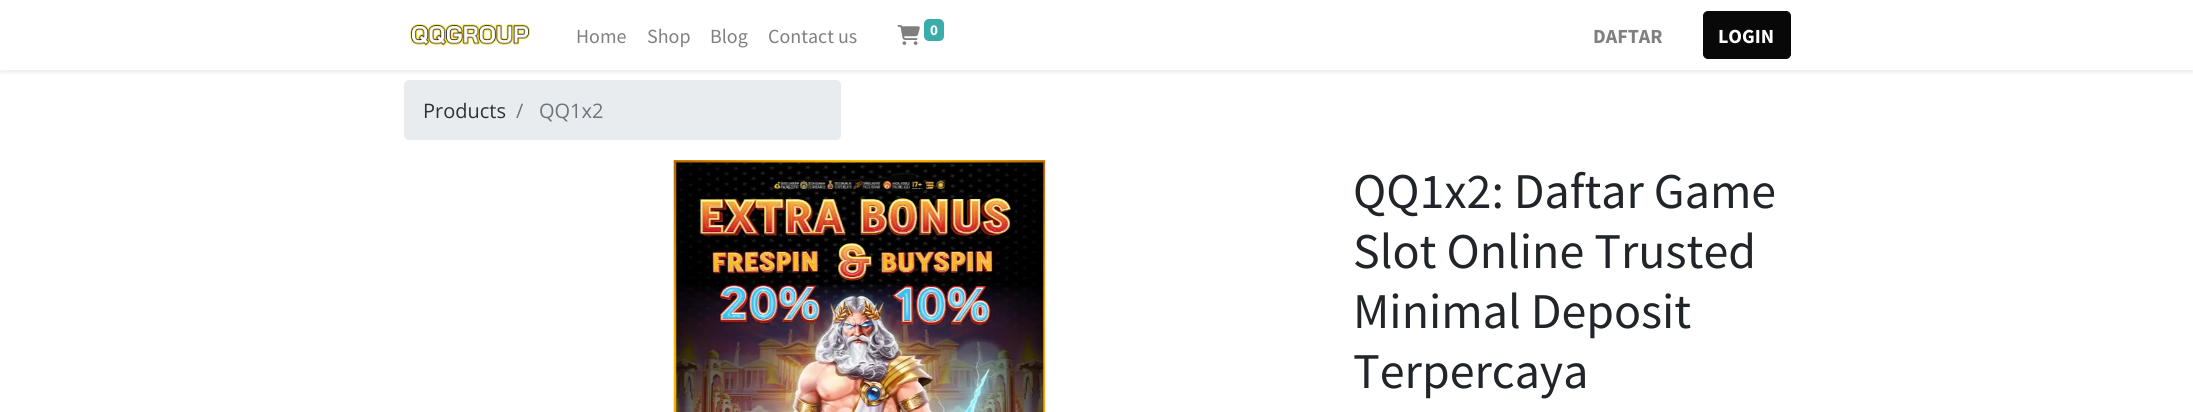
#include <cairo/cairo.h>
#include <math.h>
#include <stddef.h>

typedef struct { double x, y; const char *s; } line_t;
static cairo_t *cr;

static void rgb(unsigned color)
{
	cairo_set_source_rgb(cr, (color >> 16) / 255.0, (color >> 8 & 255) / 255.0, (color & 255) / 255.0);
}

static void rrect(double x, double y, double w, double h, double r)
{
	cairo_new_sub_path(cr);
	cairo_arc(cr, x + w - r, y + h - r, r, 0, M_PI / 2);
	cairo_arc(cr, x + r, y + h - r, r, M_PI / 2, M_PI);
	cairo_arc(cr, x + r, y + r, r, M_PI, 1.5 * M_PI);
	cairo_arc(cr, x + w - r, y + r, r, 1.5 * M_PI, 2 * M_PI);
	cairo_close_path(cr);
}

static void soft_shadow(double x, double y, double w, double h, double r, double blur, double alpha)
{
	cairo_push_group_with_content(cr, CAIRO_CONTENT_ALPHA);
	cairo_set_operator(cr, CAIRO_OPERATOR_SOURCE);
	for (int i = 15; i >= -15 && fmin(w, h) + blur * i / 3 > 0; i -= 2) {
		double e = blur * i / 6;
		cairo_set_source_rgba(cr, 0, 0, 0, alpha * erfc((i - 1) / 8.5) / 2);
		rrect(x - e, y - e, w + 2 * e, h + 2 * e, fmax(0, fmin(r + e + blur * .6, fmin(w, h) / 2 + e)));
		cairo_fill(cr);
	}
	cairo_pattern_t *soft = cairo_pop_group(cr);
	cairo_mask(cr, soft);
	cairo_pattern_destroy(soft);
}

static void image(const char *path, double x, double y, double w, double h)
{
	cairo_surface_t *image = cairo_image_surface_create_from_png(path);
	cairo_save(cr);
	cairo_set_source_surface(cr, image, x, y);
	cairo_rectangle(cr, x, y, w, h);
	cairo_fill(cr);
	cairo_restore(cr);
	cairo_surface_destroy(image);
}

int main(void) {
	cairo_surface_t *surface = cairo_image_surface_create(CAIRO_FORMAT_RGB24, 2193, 412);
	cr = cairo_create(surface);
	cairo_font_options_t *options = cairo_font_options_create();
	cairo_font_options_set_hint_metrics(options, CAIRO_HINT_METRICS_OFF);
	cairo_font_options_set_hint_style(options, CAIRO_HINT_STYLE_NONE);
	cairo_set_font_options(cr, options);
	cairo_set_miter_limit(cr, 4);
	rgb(0xffffff);
	cairo_paint(cr);
	rgb(0xe9ecef);
	rrect(404, 80, 437, 60, 5);
	cairo_fill(cr);
	cairo_save(cr);
	cairo_rectangle(cr, 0, 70, 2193, 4);
	cairo_clip(cr);
	rgb(0x000000);
	soft_shadow(0, 3, 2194, 70, 0, 2.5, 0.07);
	cairo_restore(cr);
	image("img/1.png", 410, 24, 121, 22);
	image("img/2.png", 897, 25, 23, 20);
	rgb(0x3aadaa);
	rrect(924, 19, 20, 22, 5);
	cairo_fill(cr);
	rgb(0x080808);
	rrect(1703.5, 11.5, 87, 47, 4.5);
	cairo_fill_preserve(cr);
	cairo_set_line_width(cr, 1);
	cairo_stroke(cr);
	image("img/3.png", 673, 160, 373, 252);
	cairo_select_font_face(cr, "Source Sans Pro", CAIRO_FONT_SLANT_NORMAL, CAIRO_FONT_WEIGHT_NORMAL);
	cairo_set_font_size(cr, 20);
	rgb(0x808080);
	{
		static const line_t items[] = {
			{576, 43, "Home"},
			{647, 43, "Shop"},
			{710, 43, "Blog"},
			{768, 43, "Contact us"},
		};
		for (size_t i = 0; i < sizeof items / sizeof *items; i++) {
			cairo_move_to(cr, items[i].x, items[i].y);
			cairo_show_text(cr, items[i].s);
		}
	}
	cairo_select_font_face(cr, "Source Sans Pro", CAIRO_FONT_SLANT_NORMAL, CAIRO_FONT_WEIGHT_BOLD);
	cairo_set_font_size(cr, 15);
	rgb(0xffffff);
	cairo_move_to(cr, 930, 35);
	cairo_show_text(cr, "0");
	cairo_set_font_size(cr, 20);
	rgb(0x808080);
	cairo_move_to(cr, 1593, 43);
	cairo_show_text(cr, "DAFTAR");
	rgb(0xffffff);
	cairo_move_to(cr, 1718, 43);
	cairo_show_text(cr, "LOGIN");
	cairo_select_font_face(cr, "Open Sans", CAIRO_FONT_SLANT_NORMAL, CAIRO_FONT_WEIGHT_NORMAL);
	rgb(0x313131);
	cairo_move_to(cr, 423, 118);
	cairo_show_text(cr, "Products");
	rgb(0x6c757d);
	cairo_move_to(cr, 516, 118);
	cairo_show_text(cr, "/");
	cairo_move_to(cr, 539, 118);
	cairo_show_text(cr, "QQ1x2");
	cairo_select_font_face(cr, "Source Sans Pro", CAIRO_FONT_SLANT_NORMAL, CAIRO_FONT_WEIGHT_NORMAL);
	cairo_set_font_size(cr, 50);
	rgb(0x212529);
	{
		static const line_t items[] = {
			{1353, 208, "QQ1x2: Daftar Game"},
			{1353, 268, "Slot Online Trusted"},
			{1353, 328, "Minimal Deposit"},
			{1353, 388, "Terpercaya"},
		};
		for (size_t i = 0; i < sizeof items / sizeof *items; i++) {
			cairo_move_to(cr, items[i].x, items[i].y);
			cairo_show_text(cr, items[i].s);
		}
	}
	cairo_surface_write_to_png(surface, "page.png");
	cairo_font_options_destroy(options);
	cairo_destroy(cr);
	cairo_surface_destroy(surface);
	return 0;
}
